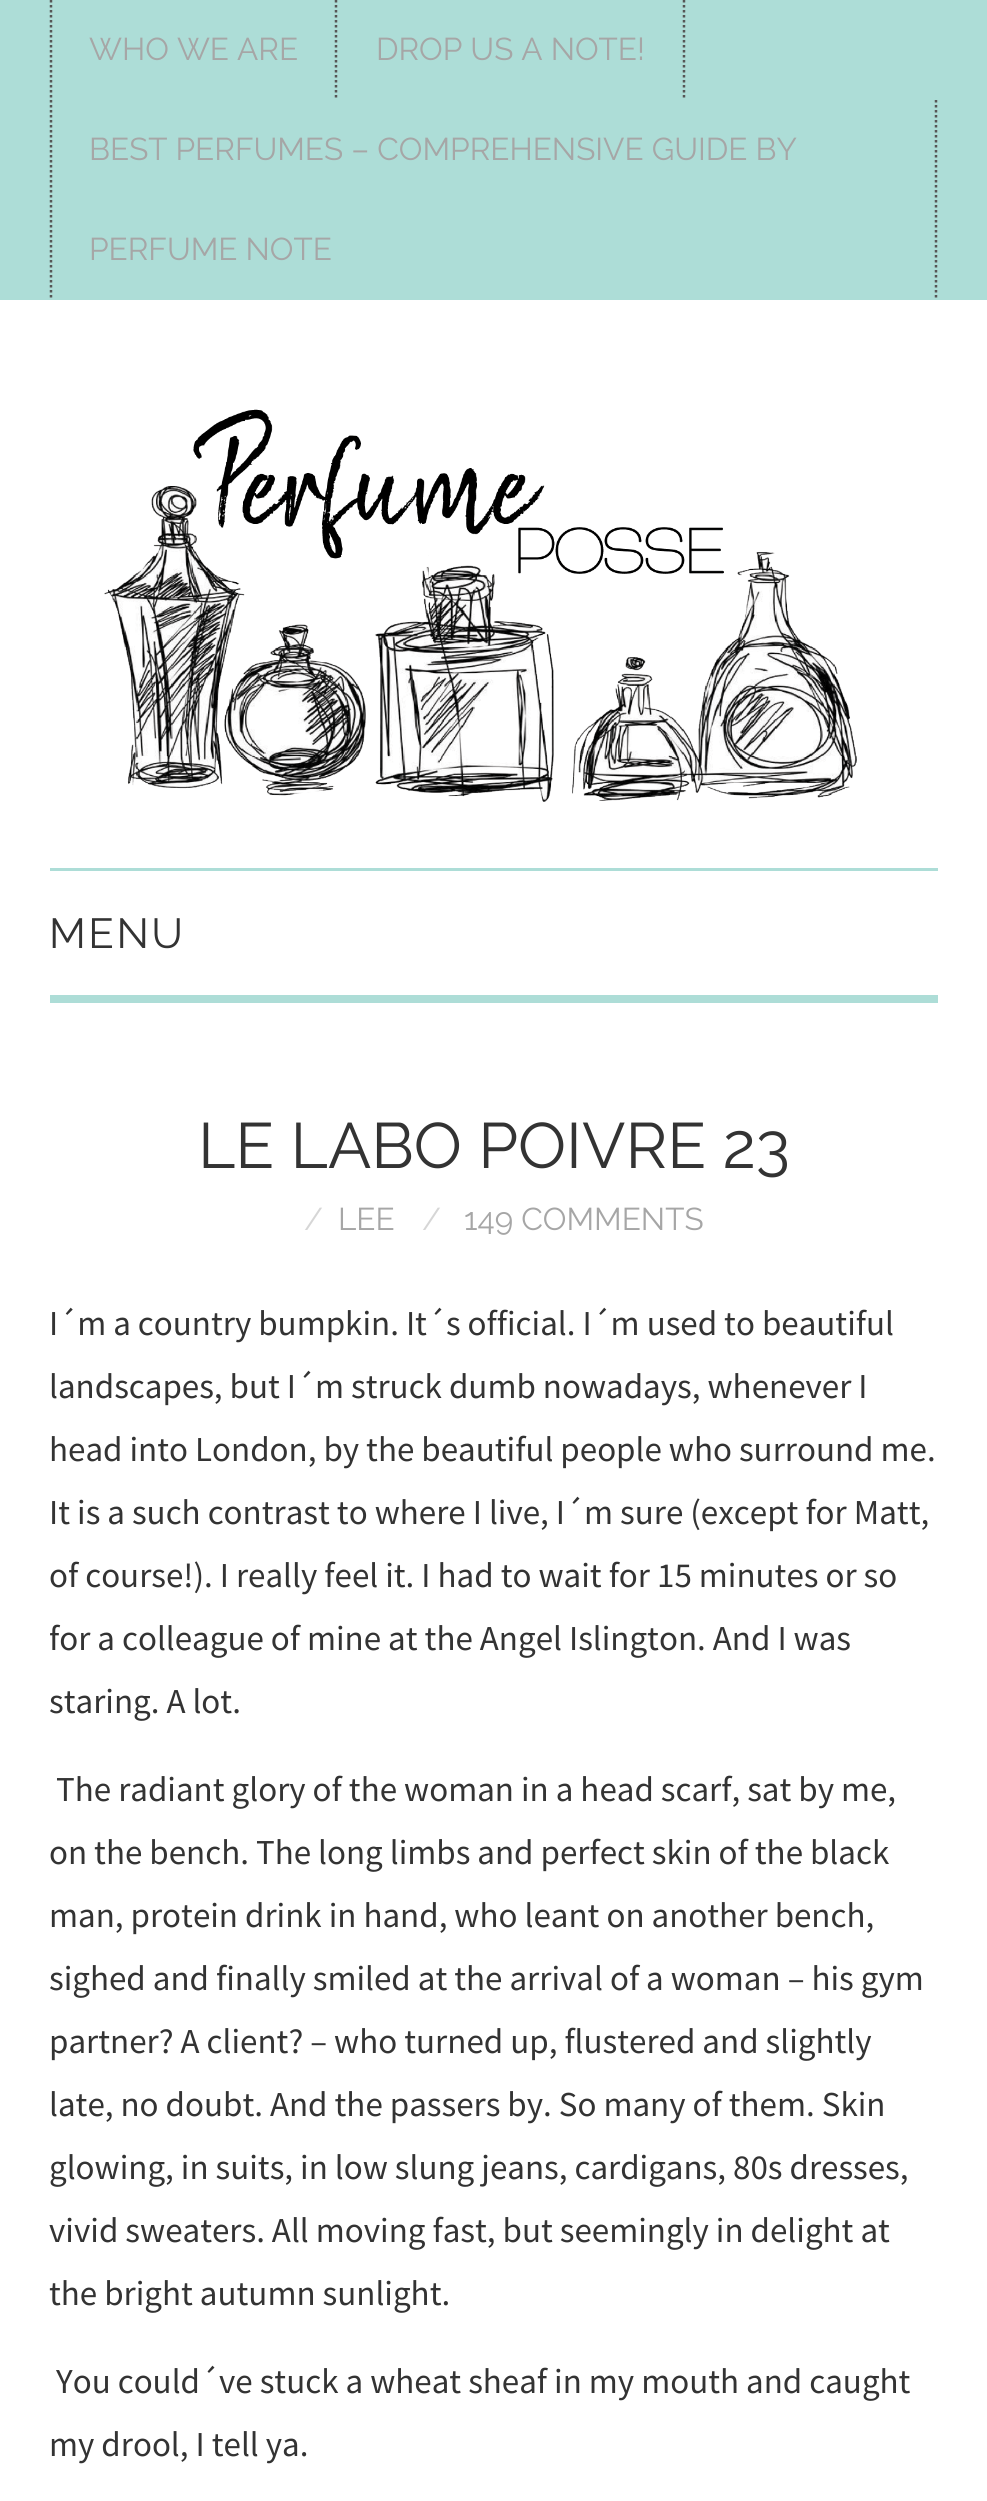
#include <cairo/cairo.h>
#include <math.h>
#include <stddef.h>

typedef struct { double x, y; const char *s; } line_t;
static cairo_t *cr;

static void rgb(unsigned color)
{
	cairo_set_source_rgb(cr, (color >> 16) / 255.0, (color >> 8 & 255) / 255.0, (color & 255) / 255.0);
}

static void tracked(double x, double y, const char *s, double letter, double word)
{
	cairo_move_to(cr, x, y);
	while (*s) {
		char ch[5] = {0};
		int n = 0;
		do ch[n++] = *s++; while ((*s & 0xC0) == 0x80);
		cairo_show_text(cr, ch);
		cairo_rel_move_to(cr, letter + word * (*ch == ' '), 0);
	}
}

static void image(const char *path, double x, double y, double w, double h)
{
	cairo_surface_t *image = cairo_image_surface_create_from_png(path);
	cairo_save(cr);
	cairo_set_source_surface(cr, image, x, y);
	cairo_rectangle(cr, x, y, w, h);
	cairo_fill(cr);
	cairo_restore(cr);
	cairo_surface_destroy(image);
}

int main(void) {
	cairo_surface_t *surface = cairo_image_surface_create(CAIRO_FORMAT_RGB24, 987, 2501);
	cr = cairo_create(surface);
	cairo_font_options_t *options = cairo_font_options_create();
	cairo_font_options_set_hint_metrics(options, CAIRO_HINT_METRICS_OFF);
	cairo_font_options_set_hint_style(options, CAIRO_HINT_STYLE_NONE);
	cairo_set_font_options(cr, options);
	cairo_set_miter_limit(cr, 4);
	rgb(0xffffff);
	cairo_paint(cr);
	rgb(0xadddd7);
	cairo_rectangle(cr, 0, 0, 987, 300);
	cairo_fill(cr);
	cairo_new_path(cr);
	cairo_move_to(cr, 51, 0);
	cairo_line_to(cr, 51, 300);
	rgb(0x565656);
	cairo_set_line_width(cr, 2.5);
	cairo_set_dash(cr, (double[]){2.5, 2.5}, 2, 0);
	cairo_stroke(cr);
	cairo_new_path(cr);
	cairo_move_to(cr, 336, 0);
	cairo_line_to(cr, 336, 100);
	cairo_stroke(cr);
	cairo_new_path(cr);
	cairo_move_to(cr, 684, 0);
	cairo_line_to(cr, 684, 100);
	cairo_stroke(cr);
	cairo_new_path(cr);
	cairo_move_to(cr, 936, 100);
	cairo_line_to(cr, 936, 300);
	cairo_stroke(cr);
	image("img/1.png", 104, 409, 753, 393);
	rgb(0xadddd7);
	cairo_rectangle(cr, 50, 868, 888, 3);
	cairo_fill(cr);
	cairo_rectangle(cr, 50, 995, 888, 8);
	cairo_fill(cr);
	cairo_select_font_face(cr, "Raleway", CAIRO_FONT_SLANT_NORMAL, CAIRO_FONT_WEIGHT_NORMAL);
	cairo_set_font_size(cr, 31.5);
	rgb(0xa6a6a6);
	{
		static const line_t items[] = {
			{89, 60, "WHO WE ARE"},
			{376, 60, "DROP US A NOTE!"},
			{89, 160, "BEST PERFUMES – COMPREHENSIVE GUIDE BY"},
			{89, 260, "PERFUME NOTE"},
		};
		for (size_t i = 0; i < sizeof items / sizeof *items; i++) {
			cairo_move_to(cr, items[i].x, items[i].y);
			cairo_show_text(cr, items[i].s);
		}
	}
	cairo_set_font_size(cr, 42);
	rgb(0x333333);
	tracked(49, 948, "MENU", 2.5, 0);
	cairo_set_font_size(cr, 64);
	cairo_move_to(cr, 198, 1168);
	cairo_show_text(cr, "LE LABO POIVRE 23");
	cairo_set_font_size(cr, 31.5);
	rgb(0xd6d6d6);
	cairo_move_to(cr, 304, 1230);
	cairo_show_text(cr, "/");
	rgb(0xa6a6a6);
	cairo_move_to(cr, 338, 1230);
	cairo_show_text(cr, "LEE");
	rgb(0xd6d6d6);
	cairo_move_to(cr, 422, 1230);
	cairo_show_text(cr, "/");
	rgb(0xa6a6a6);
	cairo_move_to(cr, 464, 1230);
	cairo_show_text(cr, "149 COMMENTS");
	cairo_select_font_face(cr, "Source Sans Pro", CAIRO_FONT_SLANT_NORMAL, CAIRO_FONT_WEIGHT_NORMAL);
	cairo_set_font_size(cr, 35);
	rgb(0x333333);
	{
		static const line_t items[] = {
			{49, 1335, "I´m a country bumpkin. It´s official. I´m used to beautiful"},
			{49, 1398, "landscapes, but I´m struck dumb nowadays, whenever I"},
			{49, 1461, "head into London, by the beautiful people who surround me."},
			{49, 1524, "It is a such contrast to where I live, I´m sure (except for Matt,"},
			{49, 1587, "of course!). I really feel it. I had to wait for 15 minutes or so"},
			{49, 1650, "for a colleague of mine at the Angel Islington. And I was"},
			{49, 1713, "staring. A lot."},
			{56, 1801, "The radiant glory of the woman in a head scarf, sat by me,"},
			{49, 1864, "on the bench. The long limbs and perfect skin of the black"},
			{49, 1927, "man, protein drink in hand, who leant on another bench,"},
			{49, 1990, "sighed and finally smiled at the arrival of a woman – his gym"},
			{49, 2053, "partner? A client? – who turned up, flustered and slightly"},
			{49, 2116, "late, no doubt. And the passers by. So many of them. Skin"},
			{49, 2179, "glowing, in suits, in low slung jeans, cardigans, 80s dresses,"},
			{49, 2242, "vivid sweaters. All moving fast, but seemingly in delight at"},
			{49, 2305, "the bright autumn sunlight."},
			{56, 2393, "You could´ve stuck a wheat sheaf in my mouth and caught"},
			{49, 2456, "my drool, I tell ya."},
		};
		for (size_t i = 0; i < sizeof items / sizeof *items; i++) {
			cairo_move_to(cr, items[i].x, items[i].y);
			cairo_show_text(cr, items[i].s);
		}
	}
	cairo_surface_write_to_png(surface, "page.png");
	cairo_font_options_destroy(options);
	cairo_destroy(cr);
	cairo_surface_destroy(surface);
	return 0;
}
